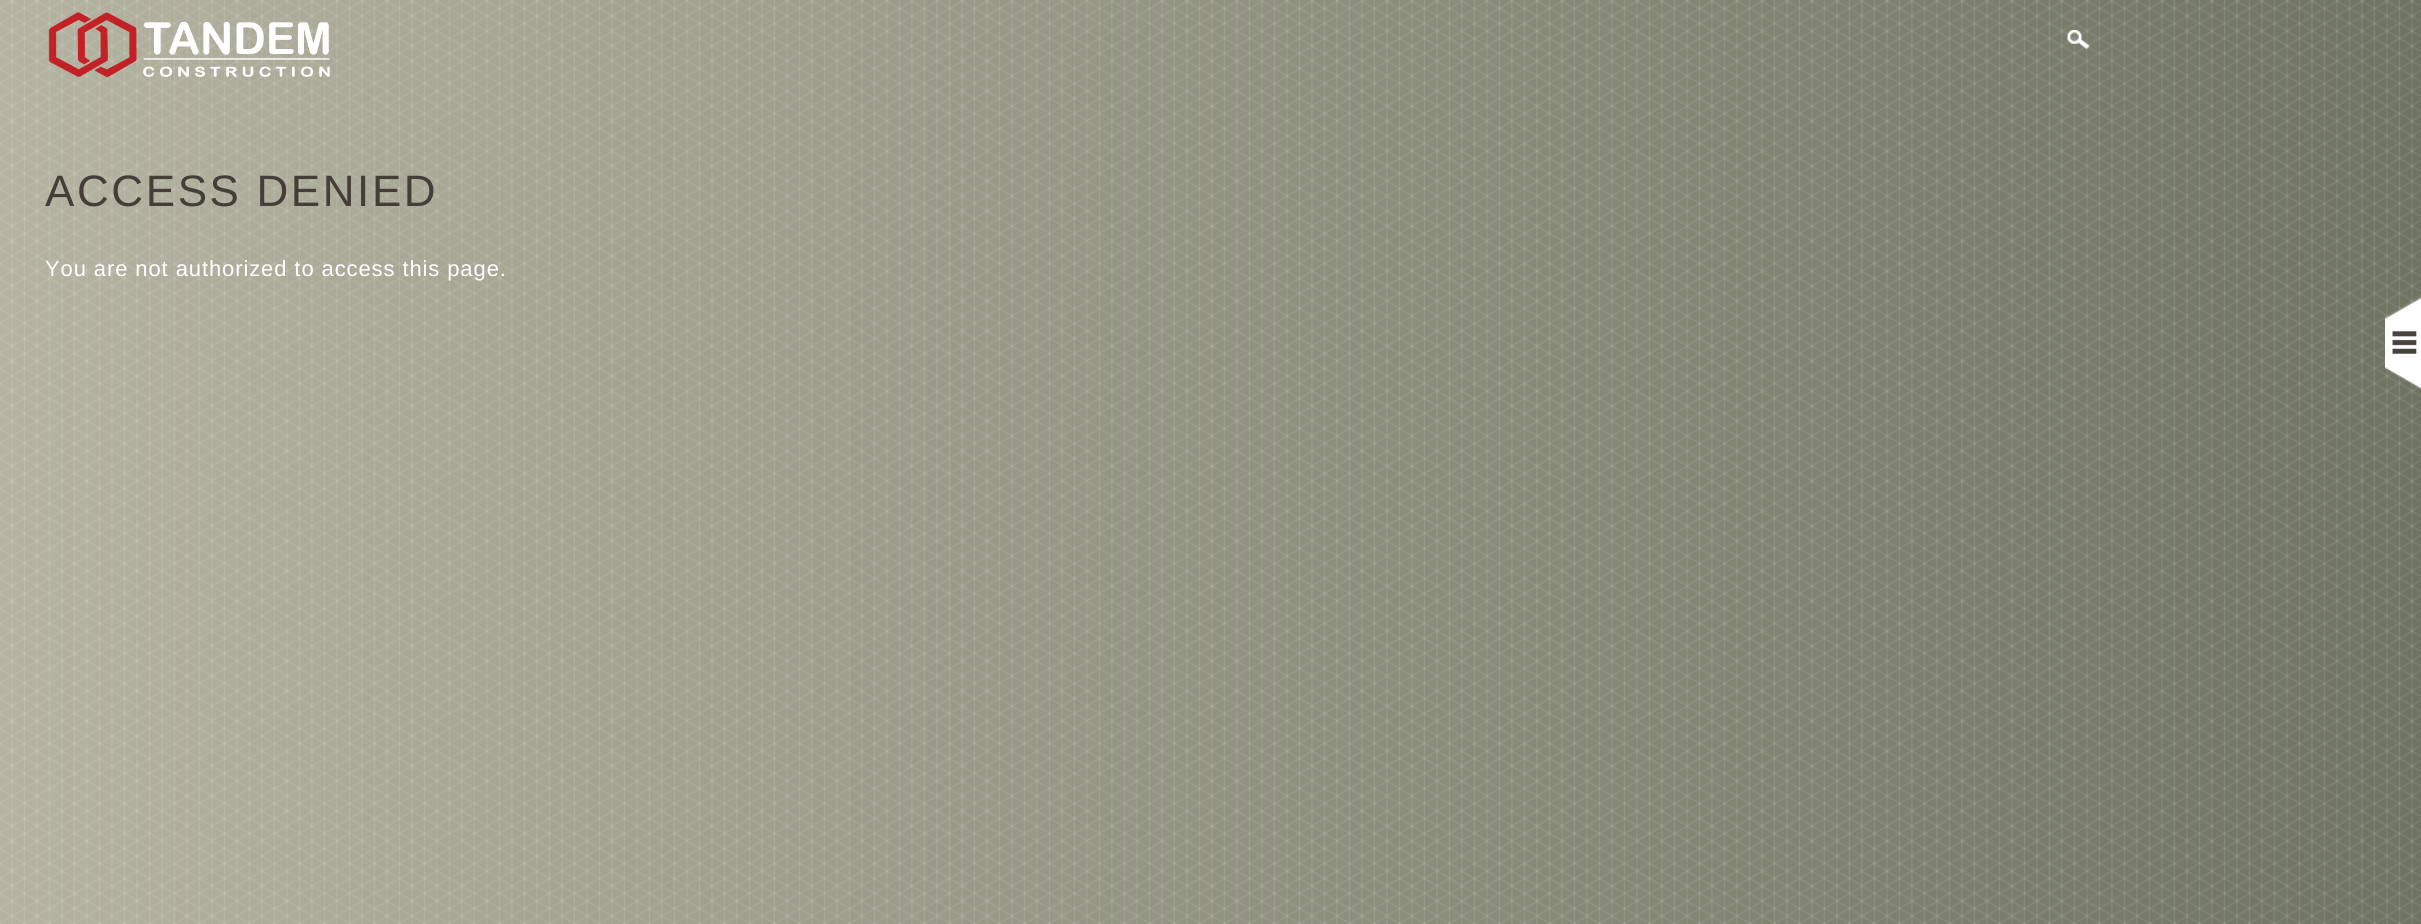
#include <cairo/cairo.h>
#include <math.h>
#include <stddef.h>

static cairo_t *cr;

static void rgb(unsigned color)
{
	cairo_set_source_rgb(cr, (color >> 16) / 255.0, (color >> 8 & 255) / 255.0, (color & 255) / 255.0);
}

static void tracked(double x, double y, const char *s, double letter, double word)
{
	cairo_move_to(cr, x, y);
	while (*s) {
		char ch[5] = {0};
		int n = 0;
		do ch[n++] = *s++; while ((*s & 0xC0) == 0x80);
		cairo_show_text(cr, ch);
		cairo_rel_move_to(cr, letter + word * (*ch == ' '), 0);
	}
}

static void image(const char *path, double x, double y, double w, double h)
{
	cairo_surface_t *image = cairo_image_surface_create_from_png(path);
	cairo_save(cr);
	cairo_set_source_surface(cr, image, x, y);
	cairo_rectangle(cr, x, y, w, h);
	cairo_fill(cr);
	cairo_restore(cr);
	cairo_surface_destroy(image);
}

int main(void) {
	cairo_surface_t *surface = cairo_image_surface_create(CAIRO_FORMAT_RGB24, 2421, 924);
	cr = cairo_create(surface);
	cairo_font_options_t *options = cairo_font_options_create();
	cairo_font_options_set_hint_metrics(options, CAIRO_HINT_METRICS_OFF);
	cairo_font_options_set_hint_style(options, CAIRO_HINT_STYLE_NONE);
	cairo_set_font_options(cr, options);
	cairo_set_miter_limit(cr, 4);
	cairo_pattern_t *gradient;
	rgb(0xffffff);
	cairo_paint(cr);
	gradient = cairo_pattern_create_linear(0, 761, 2421, 761);
	cairo_pattern_add_color_stop_rgba(gradient, 0, 0.706, 0.702, 0.635, 1);
	cairo_pattern_add_color_stop_rgba(gradient, 1, 0.435, 0.451, 0.38, 1);
	cairo_set_source(cr, gradient);
	cairo_pattern_destroy(gradient);
	cairo_rectangle(cr, 0, 0, 2421, 924);
	cairo_fill(cr);
	image("img/1.png", 0, 0, 2421, 924);
	image("img/2.png", 48, 12, 282, 66);
	image("img/3.png", 2067, 30, 23, 19);
	image("img/4.png", 2385, 297, 36, 92);
	cairo_select_font_face(cr, "Liberation Sans", CAIRO_FONT_SLANT_NORMAL, CAIRO_FONT_WEIGHT_NORMAL);
	cairo_set_font_size(cr, 44);
	rgb(0x433e38);
	tracked(45, 206, "ACCESS DENIED", 2.6, 0);
	cairo_set_font_size(cr, 22);
	rgb(0xffffff);
	tracked(45, 276, "You are not authorized to access this page.", 0.9, 0);
	cairo_surface_write_to_png(surface, "page.png");
	cairo_font_options_destroy(options);
	cairo_destroy(cr);
	cairo_surface_destroy(surface);
	return 0;
}
